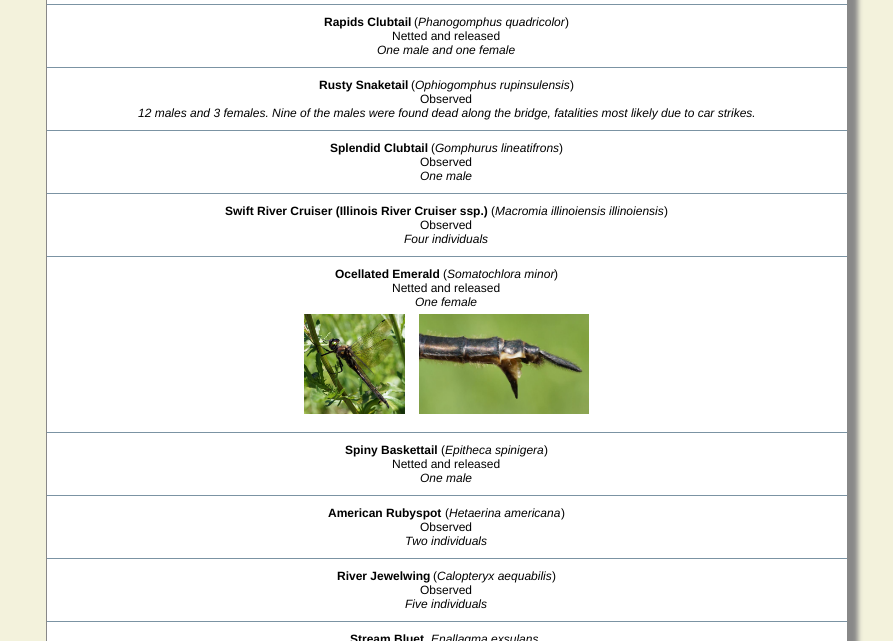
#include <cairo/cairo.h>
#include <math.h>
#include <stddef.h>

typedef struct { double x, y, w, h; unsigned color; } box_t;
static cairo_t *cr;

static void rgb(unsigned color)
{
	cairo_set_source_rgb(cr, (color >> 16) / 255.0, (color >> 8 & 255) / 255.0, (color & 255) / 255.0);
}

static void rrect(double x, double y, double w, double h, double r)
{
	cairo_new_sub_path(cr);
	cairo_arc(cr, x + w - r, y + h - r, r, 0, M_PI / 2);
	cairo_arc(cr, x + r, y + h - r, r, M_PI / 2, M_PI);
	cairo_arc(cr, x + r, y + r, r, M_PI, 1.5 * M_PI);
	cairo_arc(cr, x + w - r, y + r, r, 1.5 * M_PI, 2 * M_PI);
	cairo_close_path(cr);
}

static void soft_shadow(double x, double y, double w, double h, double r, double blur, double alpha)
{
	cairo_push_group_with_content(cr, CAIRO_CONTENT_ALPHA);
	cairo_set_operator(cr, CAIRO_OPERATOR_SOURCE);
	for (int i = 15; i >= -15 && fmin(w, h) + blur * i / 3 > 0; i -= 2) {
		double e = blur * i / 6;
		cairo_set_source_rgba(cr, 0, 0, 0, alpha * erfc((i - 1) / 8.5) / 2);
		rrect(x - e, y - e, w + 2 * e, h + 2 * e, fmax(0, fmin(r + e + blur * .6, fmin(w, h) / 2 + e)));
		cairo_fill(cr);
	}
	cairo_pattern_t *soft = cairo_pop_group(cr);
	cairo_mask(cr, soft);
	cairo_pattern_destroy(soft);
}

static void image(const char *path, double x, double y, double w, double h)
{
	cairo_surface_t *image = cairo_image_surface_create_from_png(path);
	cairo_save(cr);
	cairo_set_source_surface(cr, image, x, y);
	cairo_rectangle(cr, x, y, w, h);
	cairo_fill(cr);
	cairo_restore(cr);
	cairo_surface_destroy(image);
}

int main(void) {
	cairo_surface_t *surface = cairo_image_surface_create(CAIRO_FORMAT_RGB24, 893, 641);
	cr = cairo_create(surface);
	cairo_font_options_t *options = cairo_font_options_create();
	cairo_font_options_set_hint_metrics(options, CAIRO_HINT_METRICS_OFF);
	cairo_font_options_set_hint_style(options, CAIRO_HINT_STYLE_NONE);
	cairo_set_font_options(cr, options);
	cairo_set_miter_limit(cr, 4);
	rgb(0xf3f2dc);
	cairo_paint(cr);
	rgb(0x888888);
	soft_shadow(56, -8, 802, 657, 0, 2.5, 1);
	rgb(0xffffff);
	cairo_rectangle(cr, 46.5, -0.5, 801, 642);
	cairo_fill_preserve(cr);
	rgb(0x888888);
	cairo_set_line_width(cr, 1);
	cairo_stroke(cr);
	{
		static const box_t items[] = {
			{47, 4, 800, 1, 0x7b93a3},
			{47, 67, 800, 1, 0x7b93a3},
			{47, 130, 800, 1, 0x7b93a3},
			{47, 193, 800, 1, 0x7b93a3},
			{47, 256, 800, 1, 0x7b93a3},
		};
		for (size_t i = 0; i < sizeof items / sizeof *items; i++) {
			rgb(items[i].color);
			cairo_rectangle(cr, items[i].x, items[i].y, items[i].w, items[i].h);
			cairo_fill(cr);
		}
	}
	image("img/1.png", 304, 314, 101, 100);
	image("img/2.png", 419, 314, 170, 100);
	{
		static const box_t items[] = {
			{47, 432, 800, 1, 0x7b93a3},
			{47, 495, 800, 1, 0x7b93a3},
			{47, 558, 800, 1, 0x7b93a3},
			{47, 621, 800, 1, 0x7b93a3},
		};
		for (size_t i = 0; i < sizeof items / sizeof *items; i++) {
			rgb(items[i].color);
			cairo_rectangle(cr, items[i].x, items[i].y, items[i].w, items[i].h);
			cairo_fill(cr);
		}
	}
	cairo_select_font_face(cr, "Liberation Sans", CAIRO_FONT_SLANT_NORMAL, CAIRO_FONT_WEIGHT_BOLD);
	cairo_set_font_size(cr, 12);
	rgb(0x000000);
	cairo_move_to(cr, 324, 26);
	cairo_show_text(cr, "Rapids Clubtail");
	cairo_select_font_face(cr, "Liberation Sans", CAIRO_FONT_SLANT_NORMAL, CAIRO_FONT_WEIGHT_NORMAL);
	cairo_move_to(cr, 414, 26);
	cairo_show_text(cr, "(");
	cairo_select_font_face(cr, "Liberation Sans", CAIRO_FONT_SLANT_ITALIC, CAIRO_FONT_WEIGHT_NORMAL);
	cairo_move_to(cr, 418, 26);
	cairo_show_text(cr, "Phanogomphus quadricolor");
	cairo_select_font_face(cr, "Liberation Sans", CAIRO_FONT_SLANT_NORMAL, CAIRO_FONT_WEIGHT_NORMAL);
	cairo_move_to(cr, 565, 26);
	cairo_show_text(cr, ")");
	cairo_move_to(cr, 392, 40);
	cairo_show_text(cr, "Netted and released");
	cairo_select_font_face(cr, "Liberation Sans", CAIRO_FONT_SLANT_ITALIC, CAIRO_FONT_WEIGHT_NORMAL);
	cairo_move_to(cr, 377, 54);
	cairo_show_text(cr, "One male and one female");
	cairo_select_font_face(cr, "Liberation Sans", CAIRO_FONT_SLANT_NORMAL, CAIRO_FONT_WEIGHT_BOLD);
	cairo_move_to(cr, 319, 89);
	cairo_show_text(cr, "Rusty Snaketail");
	cairo_select_font_face(cr, "Liberation Sans", CAIRO_FONT_SLANT_NORMAL, CAIRO_FONT_WEIGHT_NORMAL);
	cairo_move_to(cr, 411, 89);
	cairo_show_text(cr, "(");
	cairo_select_font_face(cr, "Liberation Sans", CAIRO_FONT_SLANT_ITALIC, CAIRO_FONT_WEIGHT_NORMAL);
	cairo_move_to(cr, 415, 89);
	cairo_show_text(cr, "Ophiogomphus rupinsulensis");
	cairo_select_font_face(cr, "Liberation Sans", CAIRO_FONT_SLANT_NORMAL, CAIRO_FONT_WEIGHT_NORMAL);
	cairo_move_to(cr, 570, 89);
	cairo_show_text(cr, ")");
	cairo_move_to(cr, 420, 103);
	cairo_show_text(cr, "Observed");
	cairo_select_font_face(cr, "Liberation Sans", CAIRO_FONT_SLANT_ITALIC, CAIRO_FONT_WEIGHT_NORMAL);
	cairo_move_to(cr, 138, 117);
	cairo_show_text(cr, "12 males and 3 females. Nine of the males were found dead along the bridge, fatalities most likely due to car strikes.");
	cairo_select_font_face(cr, "Liberation Sans", CAIRO_FONT_SLANT_NORMAL, CAIRO_FONT_WEIGHT_BOLD);
	cairo_move_to(cr, 330, 152);
	cairo_show_text(cr, "Splendid Clubtail");
	cairo_select_font_face(cr, "Liberation Sans", CAIRO_FONT_SLANT_NORMAL, CAIRO_FONT_WEIGHT_NORMAL);
	cairo_move_to(cr, 431, 152);
	cairo_show_text(cr, "(");
	cairo_select_font_face(cr, "Liberation Sans", CAIRO_FONT_SLANT_ITALIC, CAIRO_FONT_WEIGHT_NORMAL);
	cairo_move_to(cr, 435, 152);
	cairo_show_text(cr, "Gomphurus lineatifrons");
	cairo_select_font_face(cr, "Liberation Sans", CAIRO_FONT_SLANT_NORMAL, CAIRO_FONT_WEIGHT_NORMAL);
	cairo_move_to(cr, 559, 152);
	cairo_show_text(cr, ")");
	cairo_move_to(cr, 420, 166);
	cairo_show_text(cr, "Observed");
	cairo_select_font_face(cr, "Liberation Sans", CAIRO_FONT_SLANT_ITALIC, CAIRO_FONT_WEIGHT_NORMAL);
	cairo_move_to(cr, 420, 180);
	cairo_show_text(cr, "One male");
	cairo_select_font_face(cr, "Liberation Sans", CAIRO_FONT_SLANT_NORMAL, CAIRO_FONT_WEIGHT_BOLD);
	cairo_move_to(cr, 225, 215);
	cairo_show_text(cr, "Swift River Cruiser (Illinois River Cruiser ssp.)");
	cairo_select_font_face(cr, "Liberation Sans", CAIRO_FONT_SLANT_NORMAL, CAIRO_FONT_WEIGHT_NORMAL);
	cairo_move_to(cr, 491, 215);
	cairo_show_text(cr, "(");
	cairo_select_font_face(cr, "Liberation Sans", CAIRO_FONT_SLANT_ITALIC, CAIRO_FONT_WEIGHT_NORMAL);
	cairo_move_to(cr, 495, 215);
	cairo_show_text(cr, "Macromia illinoiensis illinoiensis");
	cairo_select_font_face(cr, "Liberation Sans", CAIRO_FONT_SLANT_NORMAL, CAIRO_FONT_WEIGHT_NORMAL);
	cairo_move_to(cr, 664, 215);
	cairo_show_text(cr, ")");
	cairo_move_to(cr, 420, 229);
	cairo_show_text(cr, "Observed");
	cairo_select_font_face(cr, "Liberation Sans", CAIRO_FONT_SLANT_ITALIC, CAIRO_FONT_WEIGHT_NORMAL);
	cairo_move_to(cr, 404, 243);
	cairo_show_text(cr, "Four individuals");
	cairo_select_font_face(cr, "Liberation Sans", CAIRO_FONT_SLANT_NORMAL, CAIRO_FONT_WEIGHT_BOLD);
	cairo_move_to(cr, 335, 278);
	cairo_show_text(cr, "Ocellated Emerald");
	cairo_select_font_face(cr, "Liberation Sans", CAIRO_FONT_SLANT_NORMAL, CAIRO_FONT_WEIGHT_NORMAL);
	cairo_move_to(cr, 443, 278);
	cairo_show_text(cr, "(");
	cairo_select_font_face(cr, "Liberation Sans", CAIRO_FONT_SLANT_ITALIC, CAIRO_FONT_WEIGHT_NORMAL);
	cairo_move_to(cr, 447, 278);
	cairo_show_text(cr, "Somatochlora minor");
	cairo_select_font_face(cr, "Liberation Sans", CAIRO_FONT_SLANT_NORMAL, CAIRO_FONT_WEIGHT_NORMAL);
	cairo_move_to(cr, 554, 278);
	cairo_show_text(cr, ")");
	cairo_move_to(cr, 392, 292);
	cairo_show_text(cr, "Netted and released");
	cairo_select_font_face(cr, "Liberation Sans", CAIRO_FONT_SLANT_ITALIC, CAIRO_FONT_WEIGHT_NORMAL);
	cairo_move_to(cr, 415, 306);
	cairo_show_text(cr, "One female");
	cairo_select_font_face(cr, "Liberation Sans", CAIRO_FONT_SLANT_NORMAL, CAIRO_FONT_WEIGHT_BOLD);
	cairo_move_to(cr, 345, 454);
	cairo_show_text(cr, "Spiny Baskettail");
	cairo_select_font_face(cr, "Liberation Sans", CAIRO_FONT_SLANT_NORMAL, CAIRO_FONT_WEIGHT_NORMAL);
	cairo_move_to(cr, 441, 454);
	cairo_show_text(cr, "(");
	cairo_select_font_face(cr, "Liberation Sans", CAIRO_FONT_SLANT_ITALIC, CAIRO_FONT_WEIGHT_NORMAL);
	cairo_move_to(cr, 445, 454);
	cairo_show_text(cr, "Epitheca spinigera");
	cairo_select_font_face(cr, "Liberation Sans", CAIRO_FONT_SLANT_NORMAL, CAIRO_FONT_WEIGHT_NORMAL);
	cairo_move_to(cr, 544, 454);
	cairo_show_text(cr, ")");
	cairo_move_to(cr, 392, 468);
	cairo_show_text(cr, "Netted and released");
	cairo_select_font_face(cr, "Liberation Sans", CAIRO_FONT_SLANT_ITALIC, CAIRO_FONT_WEIGHT_NORMAL);
	cairo_move_to(cr, 420, 482);
	cairo_show_text(cr, "One male");
	cairo_select_font_face(cr, "Liberation Sans", CAIRO_FONT_SLANT_NORMAL, CAIRO_FONT_WEIGHT_BOLD);
	cairo_move_to(cr, 328, 517);
	cairo_show_text(cr, "American Rubyspot");
	cairo_select_font_face(cr, "Liberation Sans", CAIRO_FONT_SLANT_NORMAL, CAIRO_FONT_WEIGHT_NORMAL);
	cairo_move_to(cr, 445, 517);
	cairo_show_text(cr, "(");
	cairo_select_font_face(cr, "Liberation Sans", CAIRO_FONT_SLANT_ITALIC, CAIRO_FONT_WEIGHT_NORMAL);
	cairo_move_to(cr, 449, 517);
	cairo_show_text(cr, "Hetaerina americana");
	cairo_select_font_face(cr, "Liberation Sans", CAIRO_FONT_SLANT_NORMAL, CAIRO_FONT_WEIGHT_NORMAL);
	cairo_move_to(cr, 561, 517);
	cairo_show_text(cr, ")");
	cairo_move_to(cr, 420, 531);
	cairo_show_text(cr, "Observed");
	cairo_select_font_face(cr, "Liberation Sans", CAIRO_FONT_SLANT_ITALIC, CAIRO_FONT_WEIGHT_NORMAL);
	cairo_move_to(cr, 405, 545);
	cairo_show_text(cr, "Two individuals");
	cairo_select_font_face(cr, "Liberation Sans", CAIRO_FONT_SLANT_NORMAL, CAIRO_FONT_WEIGHT_BOLD);
	cairo_move_to(cr, 337, 580);
	cairo_show_text(cr, "River Jewelwing");
	cairo_select_font_face(cr, "Liberation Sans", CAIRO_FONT_SLANT_NORMAL, CAIRO_FONT_WEIGHT_NORMAL);
	cairo_move_to(cr, 433, 580);
	cairo_show_text(cr, "(");
	cairo_select_font_face(cr, "Liberation Sans", CAIRO_FONT_SLANT_ITALIC, CAIRO_FONT_WEIGHT_NORMAL);
	cairo_move_to(cr, 437, 580);
	cairo_show_text(cr, "Calopteryx aequabilis");
	cairo_select_font_face(cr, "Liberation Sans", CAIRO_FONT_SLANT_NORMAL, CAIRO_FONT_WEIGHT_NORMAL);
	cairo_move_to(cr, 552, 580);
	cairo_show_text(cr, ")");
	cairo_move_to(cr, 420, 594);
	cairo_show_text(cr, "Observed");
	cairo_select_font_face(cr, "Liberation Sans", CAIRO_FONT_SLANT_ITALIC, CAIRO_FONT_WEIGHT_NORMAL);
	cairo_move_to(cr, 405, 608);
	cairo_show_text(cr, "Five individuals");
	cairo_select_font_face(cr, "Liberation Sans", CAIRO_FONT_SLANT_NORMAL, CAIRO_FONT_WEIGHT_BOLD);
	cairo_move_to(cr, 350, 643);
	cairo_show_text(cr, "Stream Bluet");
	cairo_select_font_face(cr, "Liberation Sans", CAIRO_FONT_SLANT_ITALIC, CAIRO_FONT_WEIGHT_NORMAL);
	cairo_move_to(cr, 431, 643);
	cairo_show_text(cr, "Enallagma exsulans");
	cairo_surface_write_to_png(surface, "page.png");
	cairo_font_options_destroy(options);
	cairo_destroy(cr);
	cairo_surface_destroy(surface);
	return 0;
}
